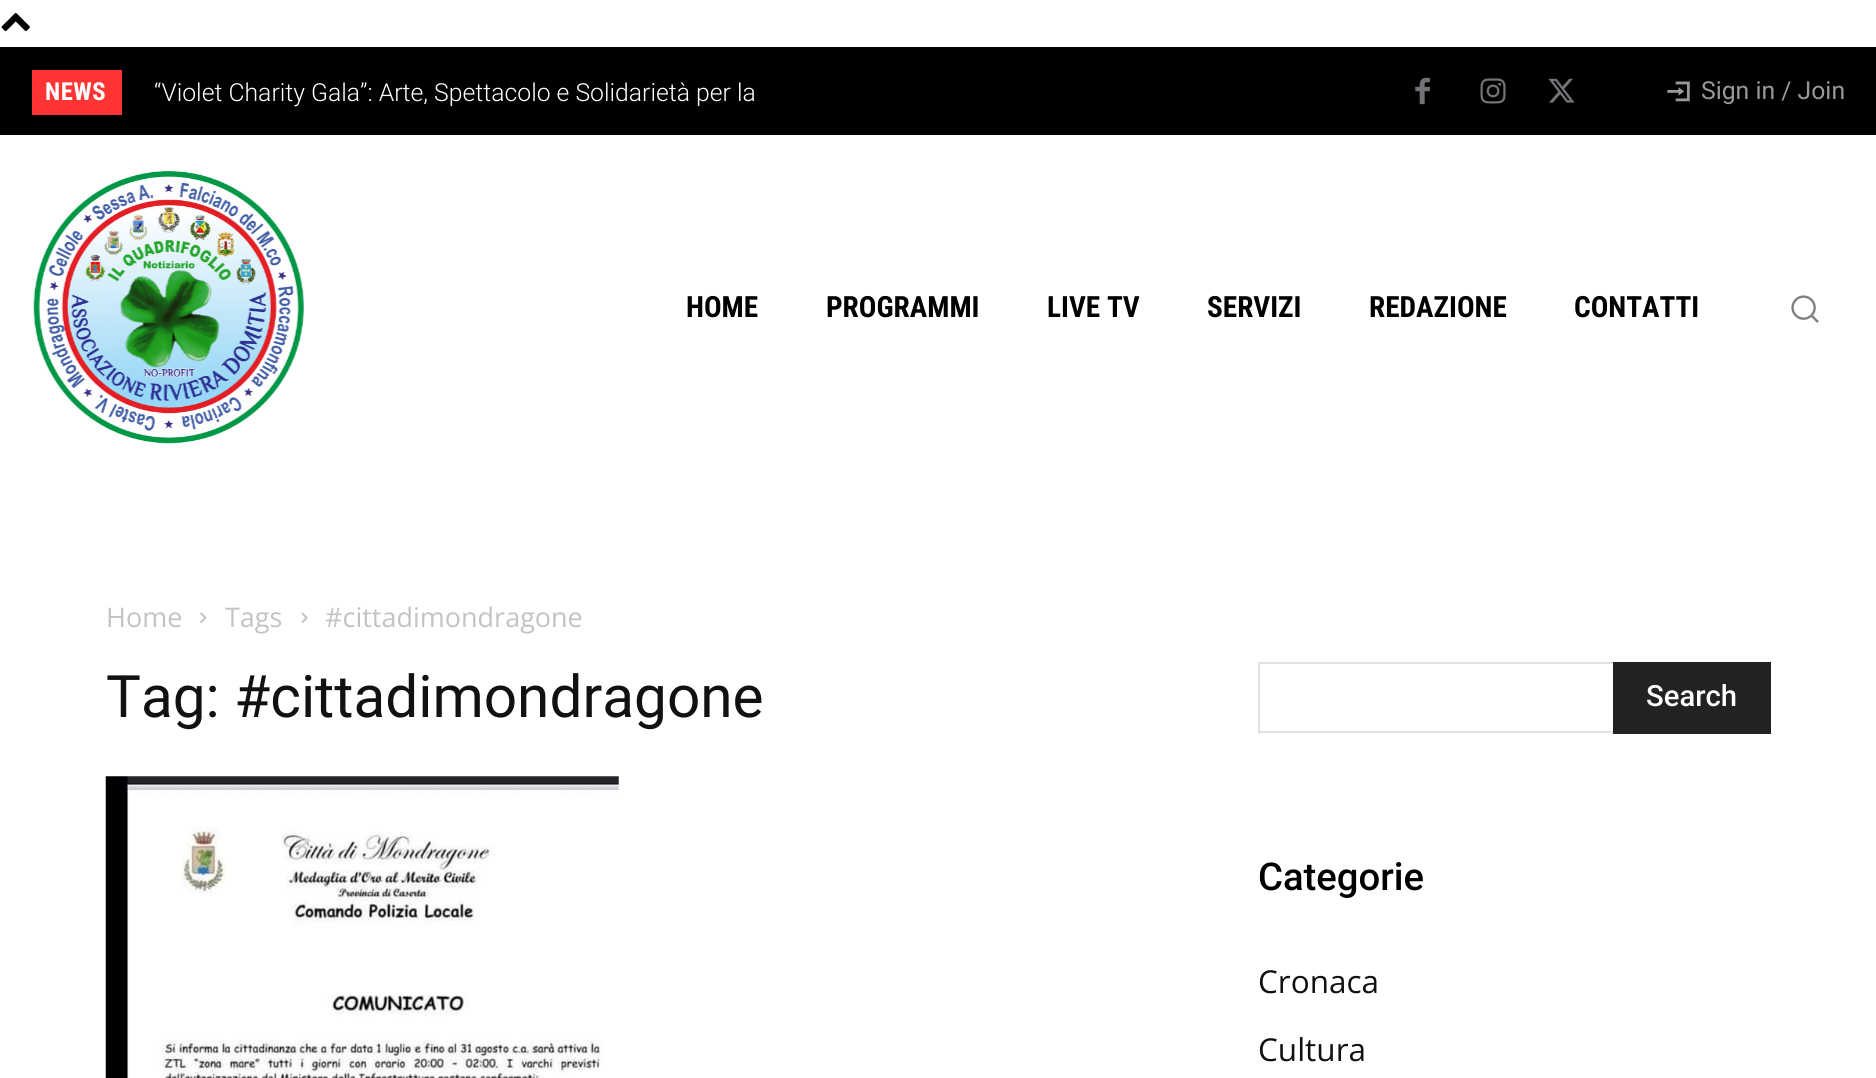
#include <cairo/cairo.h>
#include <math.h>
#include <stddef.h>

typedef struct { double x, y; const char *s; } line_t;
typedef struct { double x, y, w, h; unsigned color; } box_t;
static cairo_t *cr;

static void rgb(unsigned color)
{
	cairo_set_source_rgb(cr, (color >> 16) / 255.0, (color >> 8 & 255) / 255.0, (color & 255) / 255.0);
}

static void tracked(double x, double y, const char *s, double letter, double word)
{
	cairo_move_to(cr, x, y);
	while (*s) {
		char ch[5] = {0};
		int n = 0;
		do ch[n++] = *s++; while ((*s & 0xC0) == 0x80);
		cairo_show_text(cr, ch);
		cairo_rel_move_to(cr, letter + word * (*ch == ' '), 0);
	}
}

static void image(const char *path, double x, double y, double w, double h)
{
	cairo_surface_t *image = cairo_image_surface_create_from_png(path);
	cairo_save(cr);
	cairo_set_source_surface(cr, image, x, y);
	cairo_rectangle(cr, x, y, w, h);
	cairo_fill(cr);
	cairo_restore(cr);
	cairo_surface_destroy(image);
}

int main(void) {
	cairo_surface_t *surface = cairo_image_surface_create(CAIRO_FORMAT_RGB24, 1876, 1078);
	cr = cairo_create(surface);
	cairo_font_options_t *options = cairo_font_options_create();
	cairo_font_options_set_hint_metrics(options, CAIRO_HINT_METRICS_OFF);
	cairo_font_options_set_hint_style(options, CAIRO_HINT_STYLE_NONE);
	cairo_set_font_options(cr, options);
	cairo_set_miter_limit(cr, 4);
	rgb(0xffffff);
	cairo_paint(cr);
	image("img/1.png", 1, 13, 29, 19);
	rgb(0x000000);
	cairo_rectangle(cr, 0, 47, 1876, 88);
	cairo_fill(cr);
	rgb(0xff3535);
	cairo_rectangle(cr, 32, 70, 90, 45);
	cairo_fill(cr);
	image("img/2.png", 1415, 77, 15, 28);
	image("img/3.png", 1480, 78, 26, 26);
	image("img/4.png", 1548, 78, 27, 25);
	image("img/5.png", 1667, 81, 23, 21);
	image("img/6.png", 33, 171, 271, 273);
	image("img/7.png", 1791, 295, 28, 28);
	image("img/8.png", 200, 612, 7, 11);
	image("img/9.png", 301, 612, 7, 11);
	image("img/10.png", 105, 776, 514, 302);
	{
		static const box_t items[] = {
			{1258, 662, 355, 2, 0xe1e1e1},
			{1258, 731, 355, 2, 0xe1e1e1},
			{1258, 662, 2, 72, 0xe1e1e1},
			{1613, 662, 158, 72, 0x222222},
		};
		for (size_t i = 0; i < sizeof items / sizeof *items; i++) {
			rgb(items[i].color);
			cairo_rectangle(cr, items[i].x, items[i].y, items[i].w, items[i].h);
			cairo_fill(cr);
		}
	}
	cairo_select_font_face(cr, "Roboto Condensed", CAIRO_FONT_SLANT_NORMAL, CAIRO_FONT_WEIGHT_BOLD);
	cairo_set_font_size(cr, 24.75);
	rgb(0xffffff);
	tracked(45, 100, "NEWS", 0.5, 0);
	cairo_select_font_face(cr, "Roboto Light", CAIRO_FONT_SLANT_NORMAL, CAIRO_FONT_WEIGHT_NORMAL);
	cairo_move_to(cr, 154, 101);
	cairo_show_text(cr, "“Violet Charity Gala”: Arte, Spettacolo e Solidarietà per la");
	cairo_select_font_face(cr, "Roboto", CAIRO_FONT_SLANT_NORMAL, CAIRO_FONT_WEIGHT_NORMAL);
	rgb(0x999999);
	cairo_move_to(cr, 1701, 99);
	cairo_show_text(cr, "Sign in / Join");
	cairo_select_font_face(cr, "Roboto Condensed", CAIRO_FONT_SLANT_NORMAL, CAIRO_FONT_WEIGHT_BOLD);
	cairo_set_font_size(cr, 29.25);
	rgb(0x000000);
	{
		static const line_t items[] = {
			{686, 317, "HOME"},
			{826, 317, "PROGRAMMI"},
			{1047, 317, "LIVE TV"},
			{1207, 317, "SERVIZI"},
			{1369, 317, "REDAZIONE"},
			{1574, 317, "CONTATTI"},
		};
		for (size_t i = 0; i < sizeof items / sizeof *items; i++) {
			cairo_move_to(cr, items[i].x, items[i].y);
			cairo_show_text(cr, items[i].s);
		}
	}
	cairo_select_font_face(cr, "Open Sans", CAIRO_FONT_SLANT_NORMAL, CAIRO_FONT_WEIGHT_NORMAL);
	cairo_set_font_size(cr, 27);
	rgb(0xc3c3c3);
	{
		static const line_t items[] = {
			{106, 627, "Home"},
			{225, 627, "Tags"},
			{325, 627, "#cittadimondragone"},
		};
		for (size_t i = 0; i < sizeof items / sizeof *items; i++) {
			cairo_move_to(cr, items[i].x, items[i].y);
			cairo_show_text(cr, items[i].s);
		}
	}
	cairo_select_font_face(cr, "Roboto", CAIRO_FONT_SLANT_NORMAL, CAIRO_FONT_WEIGHT_NORMAL);
	cairo_set_font_size(cr, 58.5);
	rgb(0x111111);
	cairo_move_to(cr, 106, 717);
	cairo_show_text(cr, "Tag: #cittadimondragone");
	cairo_select_font_face(cr, "Roboto Medium", CAIRO_FONT_SLANT_NORMAL, CAIRO_FONT_WEIGHT_NORMAL);
	cairo_set_font_size(cr, 29.25);
	rgb(0xffffff);
	cairo_move_to(cr, 1646, 706);
	cairo_show_text(cr, "Search");
	cairo_set_font_size(cr, 38.25);
	rgb(0x000000);
	cairo_move_to(cr, 1258, 890);
	cairo_show_text(cr, "Categorie");
	cairo_select_font_face(cr, "Open Sans", CAIRO_FONT_SLANT_NORMAL, CAIRO_FONT_WEIGHT_NORMAL);
	cairo_set_font_size(cr, 31.5);
	rgb(0x111111);
	cairo_move_to(cr, 1258, 993);
	cairo_show_text(cr, "Cronaca");
	cairo_move_to(cr, 1258, 1061);
	cairo_show_text(cr, "Cultura");
	cairo_surface_write_to_png(surface, "page.png");
	cairo_font_options_destroy(options);
	cairo_destroy(cr);
	cairo_surface_destroy(surface);
	return 0;
}
